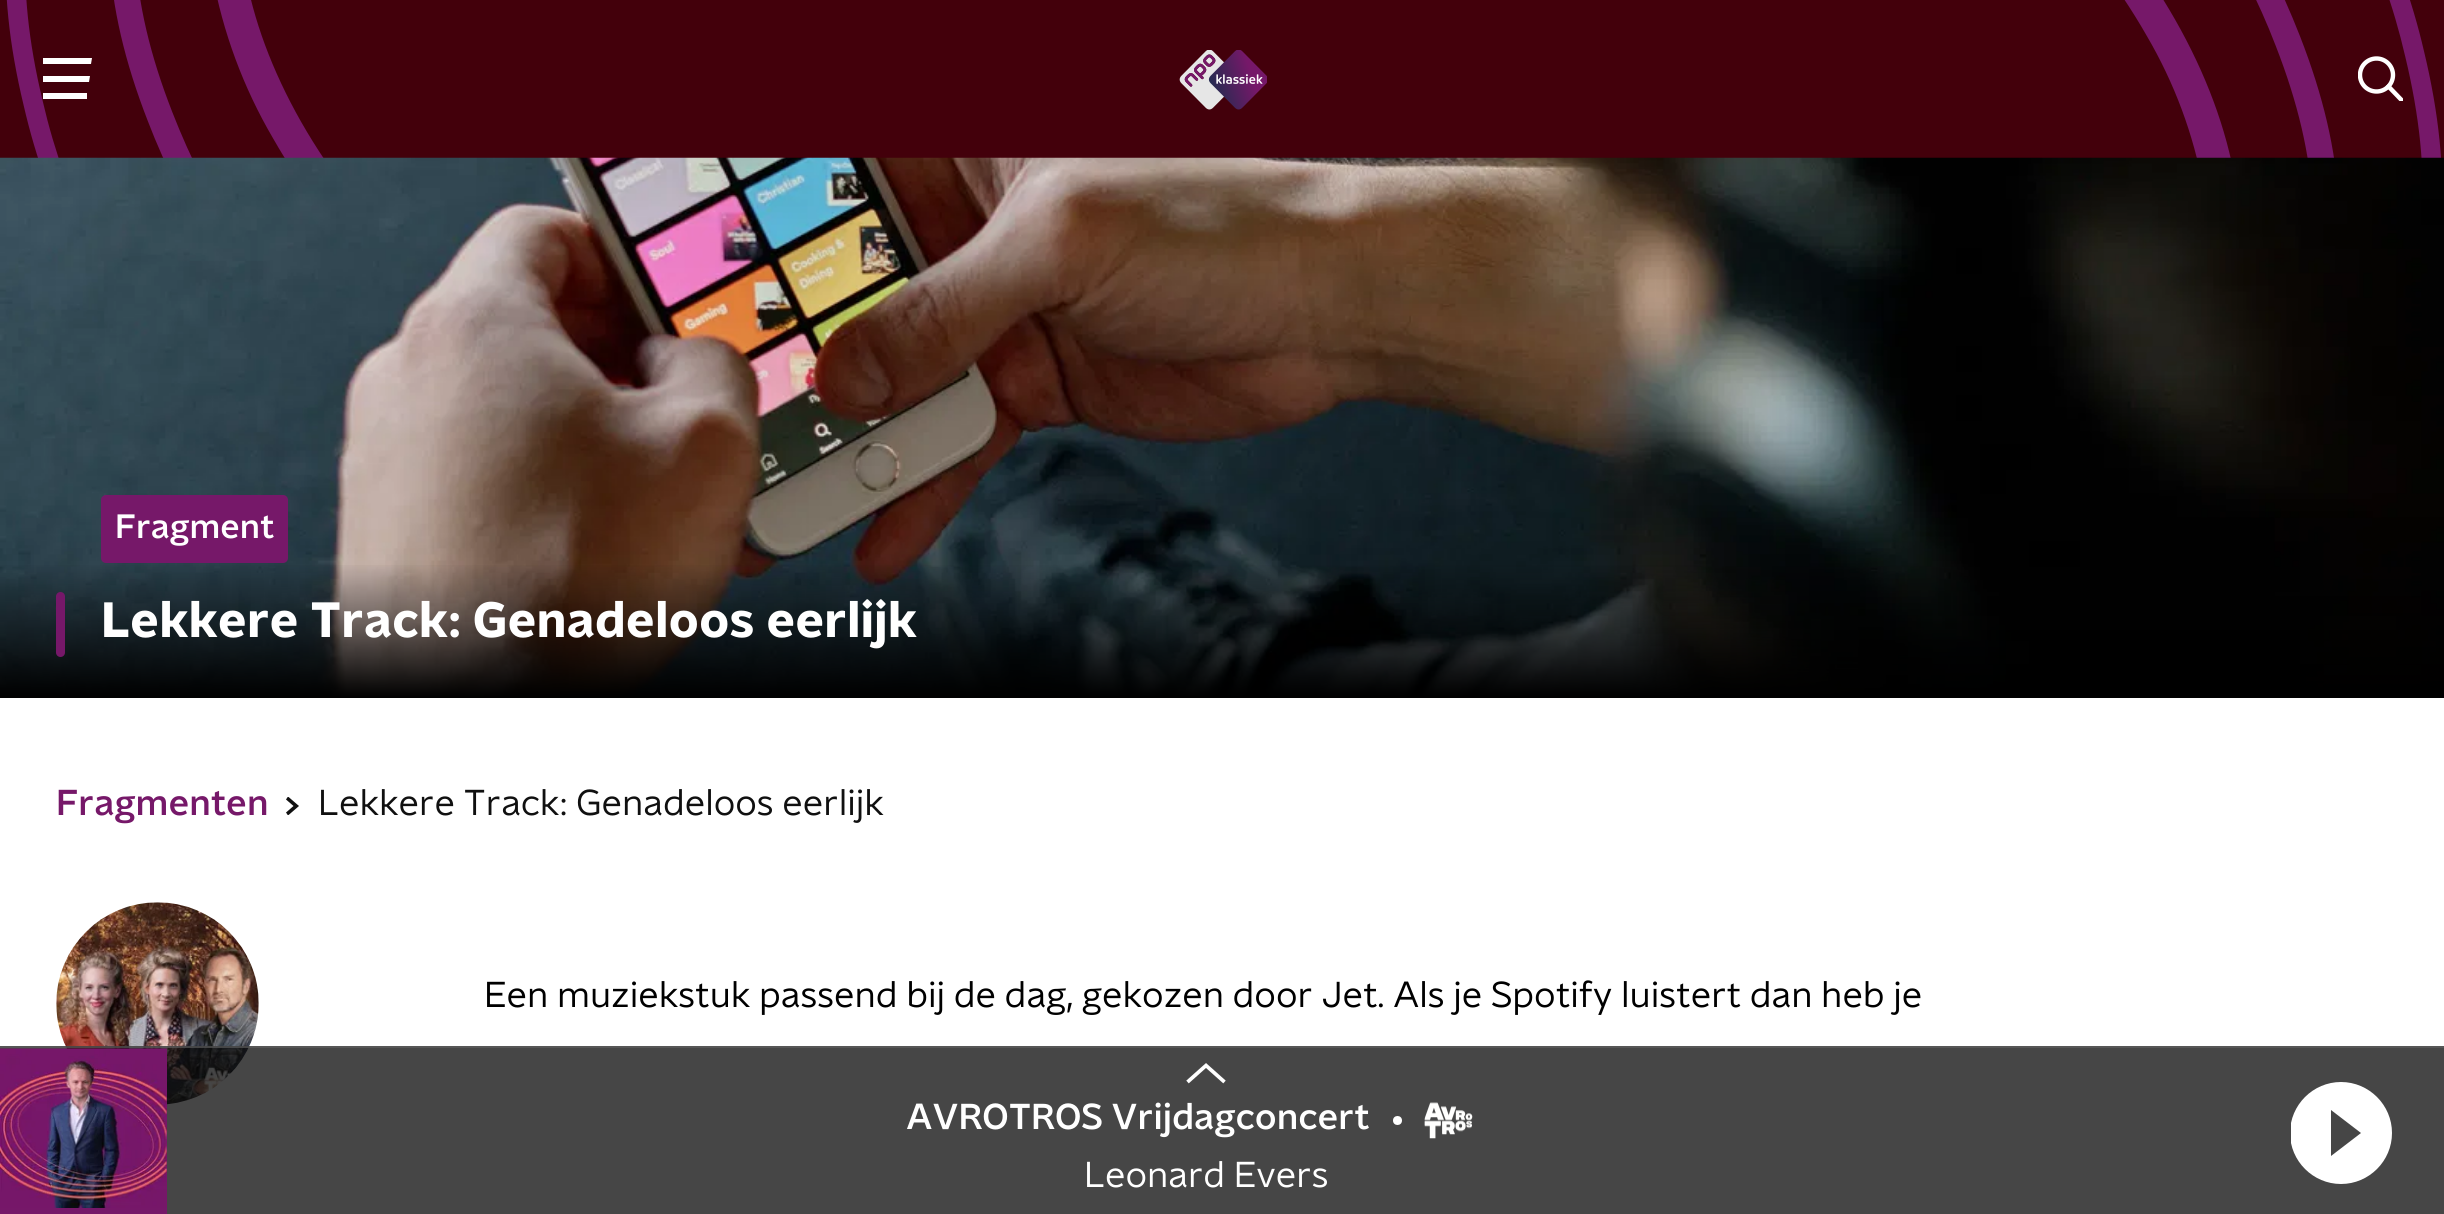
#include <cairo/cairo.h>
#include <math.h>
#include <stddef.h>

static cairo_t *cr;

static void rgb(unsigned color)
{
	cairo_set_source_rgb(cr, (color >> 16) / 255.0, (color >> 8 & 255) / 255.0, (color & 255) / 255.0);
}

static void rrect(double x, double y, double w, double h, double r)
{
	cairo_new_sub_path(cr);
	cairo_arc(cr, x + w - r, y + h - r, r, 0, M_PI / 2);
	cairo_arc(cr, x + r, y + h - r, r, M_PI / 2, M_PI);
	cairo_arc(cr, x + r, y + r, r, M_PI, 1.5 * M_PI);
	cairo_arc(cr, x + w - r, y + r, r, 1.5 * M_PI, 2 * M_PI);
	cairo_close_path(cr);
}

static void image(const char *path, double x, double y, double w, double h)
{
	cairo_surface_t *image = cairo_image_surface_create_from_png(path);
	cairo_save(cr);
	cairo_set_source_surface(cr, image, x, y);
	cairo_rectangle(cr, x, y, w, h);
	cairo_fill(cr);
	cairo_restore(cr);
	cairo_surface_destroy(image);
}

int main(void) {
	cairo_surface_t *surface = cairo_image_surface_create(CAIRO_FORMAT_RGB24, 2444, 1214);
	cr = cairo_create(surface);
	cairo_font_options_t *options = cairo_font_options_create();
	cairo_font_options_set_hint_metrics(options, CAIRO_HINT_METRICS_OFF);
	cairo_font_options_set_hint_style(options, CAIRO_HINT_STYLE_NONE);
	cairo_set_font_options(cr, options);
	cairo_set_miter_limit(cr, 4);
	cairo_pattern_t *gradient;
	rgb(0xffffff);
	cairo_paint(cr);
	rgb(0x43000b);
	cairo_rectangle(cr, 0, 0, 2444, 158);
	cairo_fill(cr);
	image("img/1.png", 6, 0, 2435, 158);
	rgb(0xffffff);
	cairo_new_path(cr);
	cairo_move_to(cr, 43, 58);
	cairo_line_to(cr, 92, 58);
	cairo_line_to(cr, 91, 64);
	cairo_line_to(cr, 43, 64);
	cairo_close_path(cr);
	cairo_move_to(cr, 43, 76);
	cairo_line_to(cr, 90, 76);
	cairo_line_to(cr, 89, 82);
	cairo_line_to(cr, 43, 82);
	cairo_close_path(cr);
	cairo_move_to(cr, 43, 93);
	cairo_line_to(cr, 87, 93);
	cairo_line_to(cr, 87, 99);
	cairo_line_to(cr, 43, 99);
	cairo_close_path(cr);
	cairo_fill(cr);
	image("img/2.png", 1179, 50, 88, 60);
	cairo_save(cr);
	cairo_rectangle(cr, 2358, 56, 45, 45);
	cairo_clip(cr);
	cairo_arc(cr, 2376.5, 75, 16.5, 0, 2 * M_PI);
	cairo_set_line_width(cr, 4.4);
	cairo_stroke(cr);
	cairo_new_path(cr);
	cairo_move_to(cr, 2388.5, 86.5);
	cairo_line_to(cr, 2401.5, 100);
	cairo_set_line_cap(cr, CAIRO_LINE_CAP_SQUARE);
	cairo_stroke(cr);
	cairo_restore(cr);
	image("img/3.png", 0, 157, 2444, 540);
	gradient = cairo_pattern_create_linear(1223, 562, 1223, 698);
	cairo_pattern_add_color_stop_rgba(gradient, 0, 0, 0, 0, 0);
	cairo_pattern_add_color_stop_rgba(gradient, 1, 0, 0, 0, 1);
	cairo_set_source(cr, gradient);
	cairo_pattern_destroy(gradient);
	cairo_rectangle(cr, 0, 565, 2444, 133);
	cairo_fill(cr);
	rgb(0x761869);
	rrect(101, 495, 187, 68, 5);
	cairo_fill(cr);
	rrect(56, 592, 9, 65, 4.5);
	cairo_fill(cr);
	cairo_save(cr);
	cairo_rectangle(cr, 268, 797, 49, 18);
	cairo_clip(cr);
	rgb(0x101010);
	cairo_set_fill_rule(cr, CAIRO_FILL_RULE_EVEN_ODD);
	cairo_new_path(cr);
	cairo_move_to(cr, 288, 796.5);
	cairo_line_to(cr, 299, 806);
	cairo_line_to(cr, 288, 815.5);
	cairo_line_to(cr, 286, 812.5);
	cairo_line_to(cr, 293.5, 806);
	cairo_line_to(cr, 286, 799.5);
	cairo_close_path(cr);
	cairo_fill(cr);
	cairo_restore(cr);
	image("img/4.png", 56, 902, 203, 203);
	cairo_set_source_rgba(cr, 0.035, 0.035, 0.035, 0.75);
	cairo_rectangle(cr, 0, 1046, 2444, 168);
	cairo_fill(cr);
	cairo_set_source_rgba(cr, 0.373, 0.373, 0.373, 0.65);
	cairo_rectangle(cr, 0, 1046, 2444, 2);
	cairo_fill(cr);
	rgb(0x761869);
	cairo_rectangle(cr, 166, 1049, 1, 159);
	cairo_fill(cr);
	image("img/5.png", 0, 1048, 167, 160);
	cairo_rectangle(cr, 0, 1208, 167, 6);
	cairo_fill(cr);
	cairo_new_path(cr);
	cairo_move_to(cr, 1224.5, 1082);
	cairo_line_to(cr, 1206, 1065.5);
	cairo_line_to(cr, 1187.5, 1082);
	rgb(0xffffff);
	cairo_set_line_width(cr, 3.7);
	cairo_stroke(cr);
	cairo_arc(cr, 1397.5, 1120.5, 4.5, 0, 2 * M_PI);
	cairo_fill(cr);
	image("img/6.png", 1424, 1102, 49, 37);
	cairo_save(cr);
	cairo_rectangle(cr, 2291, 1082, 101, 102);
	cairo_clip(cr);
	cairo_new_path(cr);
	cairo_move_to(cr, 2341, 1082);
	cairo_curve_to(cr, 2313, 1082, 2290, 1105, 2290, 1133);
	cairo_curve_to(cr, 2290, 1161, 2313, 1184, 2341, 1184);
	cairo_curve_to(cr, 2369, 1184, 2392, 1161, 2392, 1133);
	cairo_curve_to(cr, 2392, 1105, 2369, 1082, 2341, 1082);
	cairo_close_path(cr);
	cairo_move_to(cr, 2331, 1156);
	cairo_line_to(cr, 2331, 1110);
	cairo_line_to(cr, 2361, 1133);
	cairo_close_path(cr);
	cairo_fill(cr);
	cairo_restore(cr);
	cairo_select_font_face(cr, "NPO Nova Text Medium", CAIRO_FONT_SLANT_NORMAL, CAIRO_FONT_WEIGHT_NORMAL);
	cairo_set_font_size(cr, 33.75);
	cairo_move_to(cr, 115, 538);
	cairo_show_text(cr, "Fragment");
	cairo_select_font_face(cr, "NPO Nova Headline", CAIRO_FONT_SLANT_NORMAL, CAIRO_FONT_WEIGHT_BOLD);
	cairo_set_font_size(cr, 49.5);
	cairo_move_to(cr, 101, 637);
	cairo_show_text(cr, "Lekkere Track: Genadeloos eerlijk");
	cairo_select_font_face(cr, "NPO Nova Text Medium", CAIRO_FONT_SLANT_NORMAL, CAIRO_FONT_WEIGHT_NORMAL);
	cairo_set_font_size(cr, 36);
	rgb(0x761869);
	cairo_move_to(cr, 56, 815);
	cairo_show_text(cr, "Fragmenten");
	cairo_select_font_face(cr, "NPO Nova Text", CAIRO_FONT_SLANT_NORMAL, CAIRO_FONT_WEIGHT_NORMAL);
	rgb(0x101010);
	cairo_move_to(cr, 318, 815);
	cairo_show_text(cr, "Lekkere Track: Genadeloos eerlijk");
	rgb(0x000000);
	cairo_move_to(cr, 484, 1007);
	cairo_show_text(cr, "Een muziekstuk passend bij de dag, gekozen door Jet. Als je Spotify luistert dan heb je");
	cairo_select_font_face(cr, "NPO Nova Text Medium", CAIRO_FONT_SLANT_NORMAL, CAIRO_FONT_WEIGHT_NORMAL);
	rgb(0xffffff);
	cairo_move_to(cr, 906, 1129);
	cairo_show_text(cr, "AVROTROS Vrijdagconcert");
	cairo_select_font_face(cr, "NPO Nova Text", CAIRO_FONT_SLANT_NORMAL, CAIRO_FONT_WEIGHT_NORMAL);
	cairo_move_to(cr, 1084, 1187);
	cairo_show_text(cr, "Leonard Evers");
	cairo_surface_write_to_png(surface, "page.png");
	cairo_font_options_destroy(options);
	cairo_destroy(cr);
	cairo_surface_destroy(surface);
	return 0;
}
